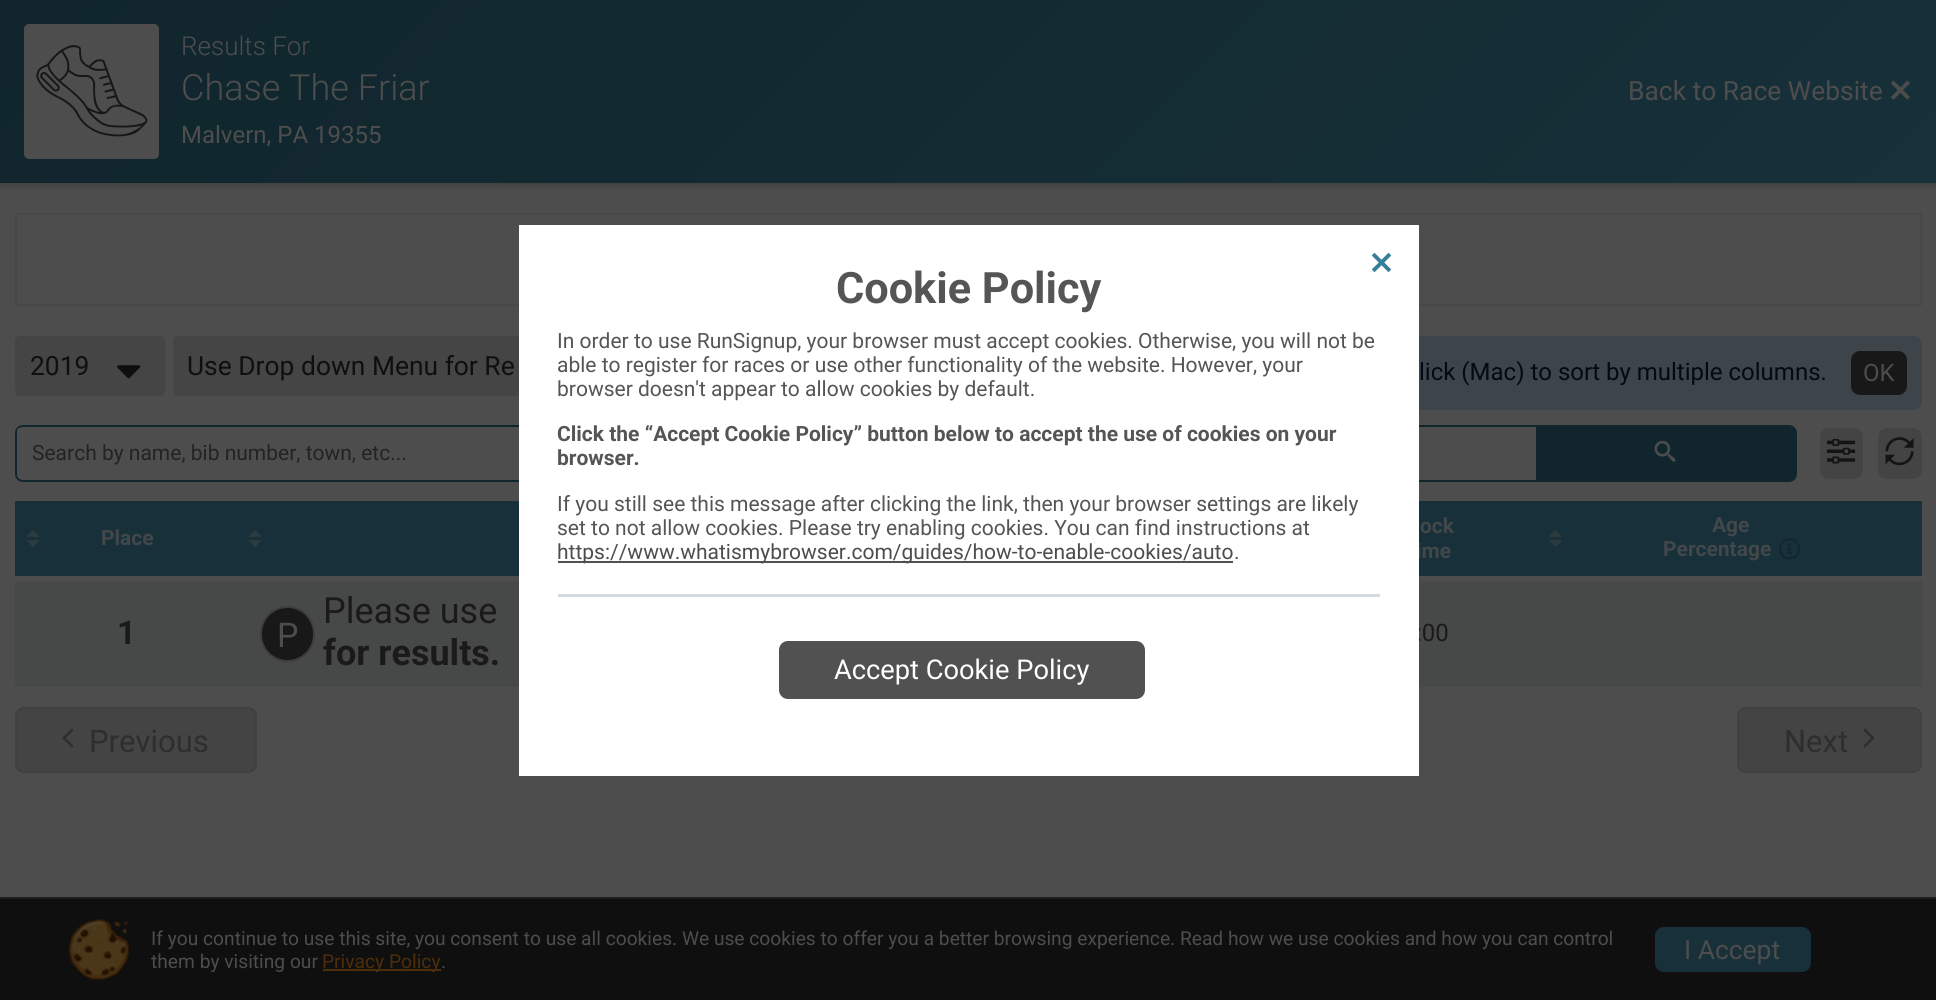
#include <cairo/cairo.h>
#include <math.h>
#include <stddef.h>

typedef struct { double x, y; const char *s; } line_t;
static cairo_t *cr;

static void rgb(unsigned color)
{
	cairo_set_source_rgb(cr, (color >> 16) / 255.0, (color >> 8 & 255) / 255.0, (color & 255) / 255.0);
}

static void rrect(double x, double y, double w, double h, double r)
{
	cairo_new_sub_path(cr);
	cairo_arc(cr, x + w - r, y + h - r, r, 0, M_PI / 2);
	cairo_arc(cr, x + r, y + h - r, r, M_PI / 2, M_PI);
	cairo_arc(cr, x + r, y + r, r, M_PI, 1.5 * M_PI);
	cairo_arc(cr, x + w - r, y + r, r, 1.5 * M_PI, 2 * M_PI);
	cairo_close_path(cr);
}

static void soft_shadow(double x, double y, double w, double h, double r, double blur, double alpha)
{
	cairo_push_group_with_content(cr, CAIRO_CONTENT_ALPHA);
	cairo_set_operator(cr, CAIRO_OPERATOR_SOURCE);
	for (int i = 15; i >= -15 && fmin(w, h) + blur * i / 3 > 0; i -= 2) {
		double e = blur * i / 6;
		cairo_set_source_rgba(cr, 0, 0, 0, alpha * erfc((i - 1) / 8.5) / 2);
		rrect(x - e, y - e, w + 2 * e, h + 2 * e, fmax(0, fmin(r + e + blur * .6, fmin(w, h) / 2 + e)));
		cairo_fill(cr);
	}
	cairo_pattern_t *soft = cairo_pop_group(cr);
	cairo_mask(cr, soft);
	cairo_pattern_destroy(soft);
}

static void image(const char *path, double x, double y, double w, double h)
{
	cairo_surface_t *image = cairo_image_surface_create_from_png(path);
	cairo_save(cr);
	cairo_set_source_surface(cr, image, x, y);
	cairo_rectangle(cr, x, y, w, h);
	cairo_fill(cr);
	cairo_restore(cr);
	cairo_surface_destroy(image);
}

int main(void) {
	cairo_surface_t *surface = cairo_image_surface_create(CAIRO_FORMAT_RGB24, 1936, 1000);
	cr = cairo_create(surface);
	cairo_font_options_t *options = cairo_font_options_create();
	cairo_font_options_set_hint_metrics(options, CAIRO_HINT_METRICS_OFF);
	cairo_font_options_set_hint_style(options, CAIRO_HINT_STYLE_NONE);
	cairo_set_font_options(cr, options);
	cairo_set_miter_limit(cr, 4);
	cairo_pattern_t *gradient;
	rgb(0x4d4d4d);
	cairo_paint(cr);
	rgb(0x000000);
	soft_shadow(0, 3, 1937, 183, 0, 3, 0.18);
	gradient = cairo_pattern_create_linear(1498, 621, 438, -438);
	cairo_pattern_add_color_stop_rgba(gradient, 0, 0.09, 0.188, 0.224, 1);
	cairo_pattern_add_color_stop_rgba(gradient, 1, 0.063, 0.145, 0.173, 1);
	cairo_set_source(cr, gradient);
	cairo_pattern_destroy(gradient);
	cairo_rectangle(cr, 0, 0, 1936, 183);
	cairo_fill(cr);
	rgb(0x4d4d4d);
	rrect(24, 24, 135, 135, 5);
	cairo_fill(cr);
	image("img/1.png", 36, 45, 112, 92);
	image("img/2.png", 1890, 80, 20, 20);
	cairo_rectangle(cr, 16, 214, 1905, 91);
	rgb(0x484848);
	cairo_stroke(cr);
	rgb(0x454545);
	rrect(15, 336, 150, 60, 5);
	cairo_fill(cr);
	image("img/3.png", 117, 365, 24, 14);
	rrect(173, 336, 474, 60, 5);
	cairo_fill(cr);
	rgb(0x3d444a);
	rrect(995, 336, 927, 74, 9);
	cairo_fill(cr);
	rgb(0x181818);
	rrect(1851, 351, 56, 44, 9);
	cairo_fill(cr);
	rrect(16, 426, 1780, 55, 7);
	rgb(0x10252c);
	cairo_stroke(cr);
	cairo_save(cr);
	rrect(17, 426, 1779, 54, 6);
	cairo_clip(cr);
	rgb(0x4d4d4d);
	cairo_rectangle(cr, 17, 428, 1519, 51);
	cairo_fill(cr);
	cairo_restore(cr);
	cairo_new_path(cr);
	cairo_move_to(cr, 1536, 426);
	cairo_line_to(cr, 1790, 426);
	cairo_curve_to(cr, 1793.5, 426, 1796, 428.5, 1796, 432);
	cairo_line_to(cr, 1796, 474);
	cairo_curve_to(cr, 1796, 477.5, 1793.5, 480, 1790, 480);
	cairo_line_to(cr, 1536, 480);
	cairo_close_path(cr);
	cairo_fill(cr);
	image("img/4.png", 1654, 440, 22, 22);
	rgb(0x444444);
	rrect(1820, 428, 43, 51, 9);
	cairo_fill(cr);
	image("img/5.png", 1827, 438, 29, 26);
	rrect(1878, 428, 44, 51, 9);
	cairo_fill(cr);
	image("img/6.png", 1885, 437, 29, 29);
	rgb(0x173039);
	cairo_rectangle(cr, 15, 501, 1907, 75);
	cairo_fill(cr);
	image("img/7.png", 27, 530, 12, 17);
	image("img/7.png", 249, 530, 12, 17);
	image("img/8.png", 1549, 530, 13, 17);
	image("img/9.png", 1779, 538, 21, 22);
	rgb(0x474848);
	cairo_rectangle(cr, 15, 581, 1907, 106);
	cairo_fill(cr);
	rgb(0x181818);
	rrect(261, 607, 53, 54, 26.5);
	cairo_fill_preserve(cr);
	rgb(0x3d3d3d);
	cairo_stroke(cr);
	rgb(0x444444);
	rrect(16, 708, 240, 64, 8);
	cairo_fill_preserve(cr);
	rgb(0x404040);
	cairo_stroke(cr);
	image("img/10.png", 62, 728, 12, 20);
	rgb(0x444444);
	rrect(1738, 708, 183, 64, 8);
	cairo_fill_preserve(cr);
	rgb(0x404040);
	cairo_stroke(cr);
	image("img/11.png", 1863, 728, 12, 20);
	rgb(0x0f0f0f);
	cairo_rectangle(cr, 0, 899, 1936, 101);
	cairo_fill(cr);
	rgb(0x1f1f1f);
	cairo_rectangle(cr, 0, 897, 1936, 2);
	cairo_fill(cr);
	image("img/13.png", 68, 919, 61, 61);
	rgb(0x4c2e0b);
	cairo_rectangle(cr, 323, 969, 118, 2);
	cairo_fill(cr);
	rgb(0x173039);
	rrect(1655, 927, 156, 45, 9);
	cairo_fill(cr);
	cairo_select_font_face(cr, "Roboto Light", CAIRO_FONT_SLANT_NORMAL, CAIRO_FONT_WEIGHT_NORMAL);
	cairo_set_font_size(cr, 26);
	rgb(0x4d4d4d);
	cairo_move_to(cr, 181, 55);
	cairo_show_text(cr, "Results For");
	cairo_set_font_size(cr, 36);
	cairo_move_to(cr, 181, 100);
	cairo_show_text(cr, "Chase The Friar");
	cairo_select_font_face(cr, "Roboto", CAIRO_FONT_SLANT_NORMAL, CAIRO_FONT_WEIGHT_NORMAL);
	cairo_set_font_size(cr, 24);
	cairo_move_to(cr, 181, 143);
	cairo_show_text(cr, "Malvern, PA 19355");
	cairo_set_font_size(cr, 26.4);
	cairo_move_to(cr, 1628, 100);
	cairo_show_text(cr, "Back to Race Website");
	rgb(0x0f0f0f);
	cairo_move_to(cr, 30, 375);
	cairo_show_text(cr, "2019");
	cairo_move_to(cr, 187, 375);
	cairo_show_text(cr, "Use Drop down Menu for Re");
	cairo_set_font_size(cr, 24);
	rgb(0x030a11);
	cairo_move_to(cr, 1419, 380);
	cairo_show_text(cr, "lick (Mac) to sort by multiple columns.");
	rgb(0x4d4d4d);
	cairo_move_to(cr, 1863, 381);
	cairo_show_text(cr, "OK");
	cairo_set_font_size(cr, 21);
	rgb(0x232323);
	cairo_move_to(cr, 32, 460);
	cairo_show_text(cr, "Search by name, bib number, town, etc...");
	cairo_select_font_face(cr, "Roboto", CAIRO_FONT_SLANT_NORMAL, CAIRO_FONT_WEIGHT_BOLD);
	rgb(0x424749);
	{
		static const line_t items[] = {
			{101, 545, "Place"},
			{1420, 533, "ock"},
			{1416, 558, "ime"},
			{1712, 532, "Age"},
			{1663, 556, "Percentage"},
		};
		for (size_t i = 0; i < sizeof items / sizeof *items; i++) {
			cairo_move_to(cr, items[i].x, items[i].y);
			cairo_show_text(cr, items[i].s);
		}
	}
	cairo_set_font_size(cr, 33);
	rgb(0x1a1a1a);
	cairo_move_to(cr, 117, 644);
	cairo_show_text(cr, "1");
	cairo_select_font_face(cr, "Roboto", CAIRO_FONT_SLANT_NORMAL, CAIRO_FONT_WEIGHT_NORMAL);
	cairo_set_font_size(cr, 34);
	rgb(0x4d4d4d);
	cairo_move_to(cr, 277, 647);
	cairo_show_text(cr, "P");
	cairo_set_font_size(cr, 36);
	rgb(0x1a1a1a);
	cairo_move_to(cr, 323, 623);
	cairo_show_text(cr, "Please use");
	cairo_select_font_face(cr, "Roboto", CAIRO_FONT_SLANT_NORMAL, CAIRO_FONT_WEIGHT_BOLD);
	cairo_move_to(cr, 323, 665);
	cairo_show_text(cr, "for results.");
	cairo_select_font_face(cr, "Roboto", CAIRO_FONT_SLANT_NORMAL, CAIRO_FONT_WEIGHT_NORMAL);
	cairo_set_font_size(cr, 24);
	cairo_move_to(cr, 1416, 641);
	cairo_show_text(cr, ":00");
	cairo_set_font_size(cr, 31);
	rgb(0x2e2e2e);
	cairo_move_to(cr, 89, 752);
	cairo_show_text(cr, "Previous");
	cairo_move_to(cr, 1784, 752);
	cairo_show_text(cr, "Next");
	cairo_rectangle(cr, 520, 226, 898, 549);
	rgb(0xffffff);
	cairo_stroke(cr);
	cairo_rectangle(cr, 521, 227, 896, 547);
	cairo_fill(cr);
	image("img/12.png", 1371, 252, 21, 21);
	cairo_select_font_face(cr, "Roboto", CAIRO_FONT_SLANT_NORMAL, CAIRO_FONT_WEIGHT_BOLD);
	cairo_set_font_size(cr, 43.25);
	rgb(0x555555);
	cairo_move_to(cr, 836, 303);
	cairo_show_text(cr, "Cookie Policy");
	cairo_select_font_face(cr, "Roboto", CAIRO_FONT_SLANT_NORMAL, CAIRO_FONT_WEIGHT_NORMAL);
	cairo_set_font_size(cr, 21);
	{
		static const line_t items[] = {
			{557, 348, "In order to use RunSignup, your browser must accept cookies. Otherwise, you will not be"},
			{557, 372, "able to register for races or use other functionality of the website. However, your"},
			{557, 396, "browser doesn't appear to allow cookies by default."},
		};
		for (size_t i = 0; i < sizeof items / sizeof *items; i++) {
			cairo_move_to(cr, items[i].x, items[i].y);
			cairo_show_text(cr, items[i].s);
		}
	}
	cairo_select_font_face(cr, "Roboto", CAIRO_FONT_SLANT_NORMAL, CAIRO_FONT_WEIGHT_BOLD);
	cairo_move_to(cr, 557, 441);
	cairo_show_text(cr, "Click the “Accept Cookie Policy” button below to accept the use of cookies on your");
	cairo_move_to(cr, 557, 465);
	cairo_show_text(cr, "browser.");
	cairo_select_font_face(cr, "Roboto", CAIRO_FONT_SLANT_NORMAL, CAIRO_FONT_WEIGHT_NORMAL);
	cairo_move_to(cr, 557, 511);
	cairo_show_text(cr, "If you still see this message after clicking the link, then your browser settings are likely");
	cairo_move_to(cr, 557, 535);
	cairo_show_text(cr, "set to not allow cookies. Please try enabling cookies. You can find instructions at");
	rgb(0x515151);
	cairo_rectangle(cr, 558, 561, 675, 2);
	cairo_fill(cr);
	rgb(0x4d4d4d);
	cairo_move_to(cr, 557, 559);
	cairo_show_text(cr, "https://www.whatismybrowser.com/guides/how-to-enable-cookies/auto");
	rgb(0x555555);
	cairo_move_to(cr, 1234, 559);
	cairo_show_text(cr, ".");
	rgb(0xd3dbdf);
	cairo_rectangle(cr, 558, 594, 822, 3);
	cairo_fill(cr);
	rgb(0x515151);
	rrect(779, 641, 366, 58, 9);
	cairo_fill(cr);
	cairo_set_font_size(cr, 27.25);
	rgb(0xffffff);
	cairo_move_to(cr, 834, 679);
	cairo_show_text(cr, "Accept Cookie Policy");
	cairo_set_font_size(cr, 19.2);
	rgb(0x4d4d4d);
	cairo_move_to(cr, 151, 945);
	cairo_show_text(cr, "If you continue to use this site, you consent to use all cookies. We use cookies to offer you a better browsing experience. Read how we use cookies and how you can control");
	cairo_move_to(cr, 151, 968);
	cairo_show_text(cr, "them by visiting our");
	rgb(0x4c2e0b);
	cairo_move_to(cr, 322, 968);
	cairo_show_text(cr, "Privacy Policy");
	rgb(0x4d4d4d);
	cairo_move_to(cr, 441, 968);
	cairo_show_text(cr, ".");
	cairo_set_font_size(cr, 26.4);
	cairo_move_to(cr, 1684, 959);
	cairo_show_text(cr, "I Accept");
	cairo_surface_write_to_png(surface, "page.png");
	cairo_font_options_destroy(options);
	cairo_destroy(cr);
	cairo_surface_destroy(surface);
	return 0;
}
